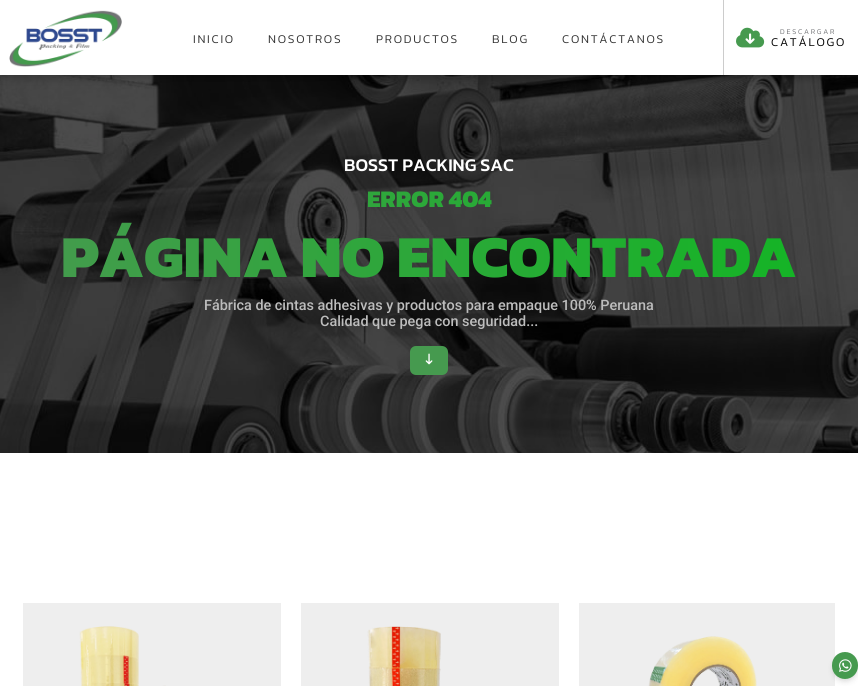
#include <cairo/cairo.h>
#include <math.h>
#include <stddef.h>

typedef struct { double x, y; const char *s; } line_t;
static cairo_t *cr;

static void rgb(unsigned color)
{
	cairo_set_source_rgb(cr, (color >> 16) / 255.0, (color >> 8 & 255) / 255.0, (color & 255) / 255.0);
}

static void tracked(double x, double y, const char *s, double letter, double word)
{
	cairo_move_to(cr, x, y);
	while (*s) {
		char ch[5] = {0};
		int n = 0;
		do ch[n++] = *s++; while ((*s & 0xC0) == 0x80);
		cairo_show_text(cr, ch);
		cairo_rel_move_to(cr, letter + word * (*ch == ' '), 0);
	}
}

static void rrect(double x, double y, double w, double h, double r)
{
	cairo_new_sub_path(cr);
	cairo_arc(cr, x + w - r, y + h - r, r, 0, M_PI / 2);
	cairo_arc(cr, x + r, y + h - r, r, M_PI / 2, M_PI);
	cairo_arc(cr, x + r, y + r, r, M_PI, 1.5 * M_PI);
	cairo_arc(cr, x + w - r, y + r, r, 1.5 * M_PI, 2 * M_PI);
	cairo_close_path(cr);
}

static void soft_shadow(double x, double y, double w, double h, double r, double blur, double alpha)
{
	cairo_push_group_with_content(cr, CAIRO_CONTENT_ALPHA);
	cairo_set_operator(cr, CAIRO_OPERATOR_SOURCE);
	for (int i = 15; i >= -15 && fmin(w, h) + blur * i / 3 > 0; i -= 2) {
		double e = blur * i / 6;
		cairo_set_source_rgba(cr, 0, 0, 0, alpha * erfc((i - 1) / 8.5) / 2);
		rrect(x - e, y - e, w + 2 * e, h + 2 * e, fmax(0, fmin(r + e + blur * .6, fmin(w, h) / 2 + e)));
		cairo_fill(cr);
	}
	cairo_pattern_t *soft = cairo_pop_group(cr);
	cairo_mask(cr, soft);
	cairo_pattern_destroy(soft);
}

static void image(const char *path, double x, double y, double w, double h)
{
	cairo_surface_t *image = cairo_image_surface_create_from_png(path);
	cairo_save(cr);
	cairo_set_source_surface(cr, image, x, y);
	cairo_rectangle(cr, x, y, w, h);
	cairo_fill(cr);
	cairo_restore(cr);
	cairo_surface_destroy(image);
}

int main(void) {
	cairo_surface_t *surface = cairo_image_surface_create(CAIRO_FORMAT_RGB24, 858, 686);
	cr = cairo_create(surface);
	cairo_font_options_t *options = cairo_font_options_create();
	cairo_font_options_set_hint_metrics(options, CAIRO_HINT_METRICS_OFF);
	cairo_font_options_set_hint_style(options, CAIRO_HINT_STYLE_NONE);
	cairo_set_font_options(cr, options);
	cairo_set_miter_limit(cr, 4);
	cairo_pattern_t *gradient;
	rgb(0xffffff);
	cairo_paint(cr);
	image("img/3.png", 0, 75, 858, 378);
	rgb(0x000000);
	soft_shadow(0, 3, 858, 75, 0, 4, 0.24);
	rgb(0xffffff);
	cairo_rectangle(cr, 0, 0, 858, 75);
	cairo_fill(cr);
	image("img/1.png", 9, 10, 113, 57);
	rgb(0xcccccc);
	cairo_rectangle(cr, 723, 0, 1, 75);
	cairo_fill(cr);
	image("img/2.png", 736, 27, 29, 21);
	rgb(0x469a4f);
	rrect(410, 346, 38, 29, 6);
	cairo_fill(cr);
	image("img/4.png", 425, 353, 8, 12);
	rgb(0xeeeeee);
	cairo_rectangle(cr, 23, 603, 258, 83);
	cairo_fill(cr);
	image("img/5.png", 79, 626, 87, 60);
	cairo_rectangle(cr, 301, 603, 258, 83);
	cairo_fill(cr);
	image("img/6.png", 367, 626, 74, 60);
	cairo_rectangle(cr, 579, 603, 256, 83);
	cairo_fill(cr);
	image("img/7.png", 648, 636, 109, 50);
	rgb(0x000000);
	soft_shadow(833, 655, 24, 25, 12, 2, 0.06);
	soft_shadow(833, 657, 24, 25, 12, 3, 0.1);
	rgb(0x469a4f);
	rrect(832, 652, 26, 27, 13);
	cairo_fill(cr);
	image("img/8.png", 839, 659, 13, 13);
	cairo_select_font_face(cr, "Kanit Light", CAIRO_FONT_SLANT_NORMAL, CAIRO_FONT_WEIGHT_NORMAL);
	cairo_set_font_size(cr, 12);
	rgb(0x333333);
	{
		static const line_t items[] = {
			{193, 43, "INICIO"},
			{268, 43, "NOSOTROS"},
			{376, 43, "PRODUCTOS"},
			{492, 43, "BLOG"},
			{562, 43, "CONTÁCTANOS"},
		};
		for (size_t i = 0; i < sizeof items / sizeof *items; i++) {
			tracked(items[i].x, items[i].y, items[i].s, 1.75, 0);
		}
	}
	cairo_set_font_size(cr, 7.25);
	rgb(0x727376);
	tracked(780, 34, "DESCARGAR", 1.75, 0);
	cairo_set_font_size(cr, 12);
	rgb(0x000000);
	tracked(771, 46, "CATÁLOGO", 1.75, 0);
	cairo_select_font_face(cr, "Kanit Medium", CAIRO_FONT_SLANT_NORMAL, CAIRO_FONT_WEIGHT_NORMAL);
	cairo_set_font_size(cr, 18);
	rgb(0xffffff);
	cairo_move_to(cr, 344, 171);
	cairo_show_text(cr, "BOSST PACKING SAC");
	cairo_select_font_face(cr, "Kanit ExtraBold", CAIRO_FONT_SLANT_NORMAL, CAIRO_FONT_WEIGHT_NORMAL);
	cairo_set_font_size(cr, 24);
	gradient = cairo_pattern_create_linear(0, 236, 858, 236);
	cairo_pattern_add_color_stop_rgba(gradient, 0, 0.275, 0.604, 0.31, 1);
	cairo_pattern_add_color_stop_rgba(gradient, 1, 0.067, 0.714, 0.137, 1);
	cairo_set_source(cr, gradient);
	cairo_pattern_destroy(gradient);
	cairo_move_to(cr, 367, 207);
	cairo_show_text(cr, "ERROR 404");
	cairo_set_font_size(cr, 60);
	gradient = cairo_pattern_create_linear(0, 256, 858, 256);
	cairo_pattern_add_color_stop_rgba(gradient, 0, 0.275, 0.604, 0.31, 1);
	cairo_pattern_add_color_stop_rgba(gradient, 1, 0.067, 0.714, 0.137, 1);
	cairo_set_source(cr, gradient);
	cairo_pattern_destroy(gradient);
	cairo_move_to(cr, 61, 277);
	cairo_show_text(cr, "PÁGINA NO ENCONTRADA");
	cairo_select_font_face(cr, "Roboto Medium", CAIRO_FONT_SLANT_NORMAL, CAIRO_FONT_WEIGHT_NORMAL);
	cairo_set_font_size(cr, 14.4);
	rgb(0xbdbdbd);
	cairo_move_to(cr, 204, 310);
	cairo_show_text(cr, "Fábrica de cintas adhesivas y productos para empaque 100% Peruana");
	cairo_move_to(cr, 320, 326);
	cairo_show_text(cr, "Calidad que pega con seguridad...");
	cairo_surface_write_to_png(surface, "page.png");
	cairo_font_options_destroy(options);
	cairo_destroy(cr);
	cairo_surface_destroy(surface);
	return 0;
}
